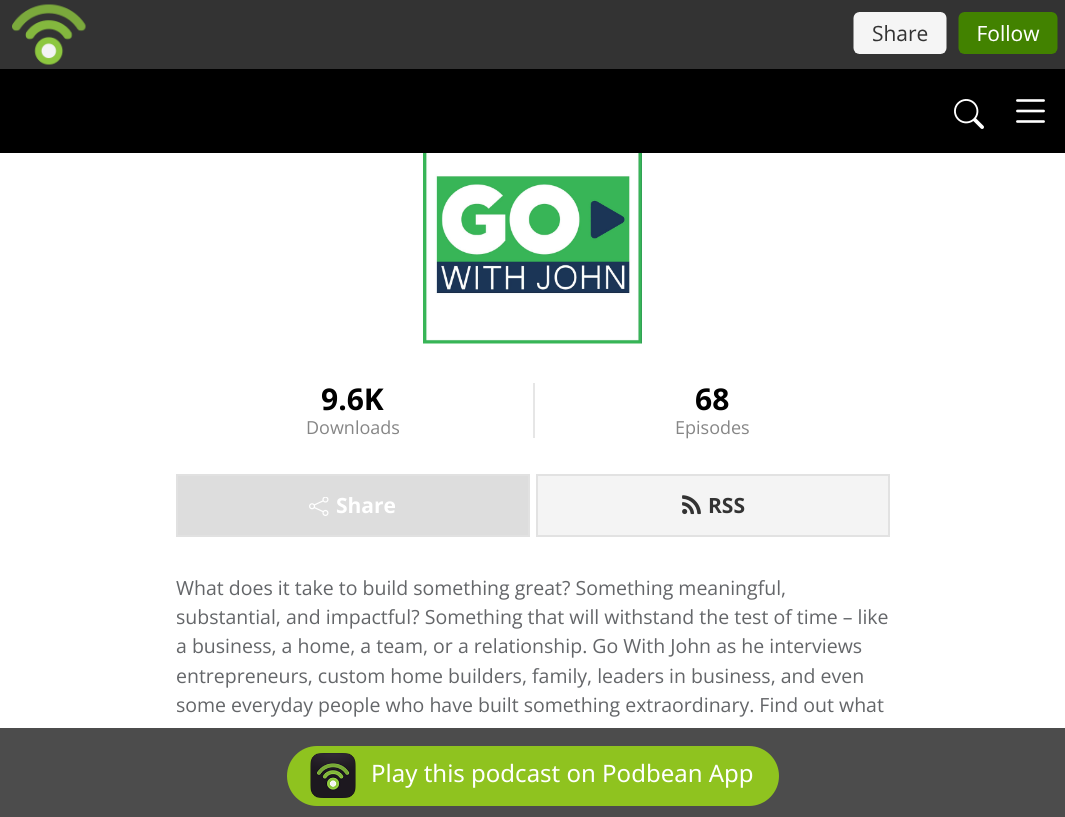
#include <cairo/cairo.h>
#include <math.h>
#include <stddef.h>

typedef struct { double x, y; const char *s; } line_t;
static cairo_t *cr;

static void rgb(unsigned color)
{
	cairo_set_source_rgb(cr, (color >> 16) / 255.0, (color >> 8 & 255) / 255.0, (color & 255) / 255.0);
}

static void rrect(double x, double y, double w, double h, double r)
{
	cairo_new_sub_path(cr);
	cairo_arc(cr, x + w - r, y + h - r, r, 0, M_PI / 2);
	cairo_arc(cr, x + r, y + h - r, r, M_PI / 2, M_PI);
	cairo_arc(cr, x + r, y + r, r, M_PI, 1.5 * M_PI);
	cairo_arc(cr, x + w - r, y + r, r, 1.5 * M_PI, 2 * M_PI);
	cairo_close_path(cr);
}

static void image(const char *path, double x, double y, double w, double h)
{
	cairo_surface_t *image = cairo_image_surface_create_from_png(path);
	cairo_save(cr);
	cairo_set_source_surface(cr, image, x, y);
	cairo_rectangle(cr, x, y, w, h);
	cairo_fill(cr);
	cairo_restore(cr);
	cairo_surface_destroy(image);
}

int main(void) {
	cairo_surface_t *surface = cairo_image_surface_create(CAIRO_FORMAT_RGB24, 1065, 817);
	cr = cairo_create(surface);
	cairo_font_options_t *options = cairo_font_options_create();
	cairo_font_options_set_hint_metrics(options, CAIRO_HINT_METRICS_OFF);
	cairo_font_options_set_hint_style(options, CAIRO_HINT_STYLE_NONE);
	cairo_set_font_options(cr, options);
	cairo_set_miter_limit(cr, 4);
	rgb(0xffffff);
	cairo_paint(cr);
	rgb(0x333333);
	cairo_rectangle(cr, 0, 0, 1065, 69);
	cairo_fill(cr);
	image("img/1.png", 12, 4, 1046, 61);
	rgb(0x000000);
	cairo_rectangle(cr, 0, 69, 1065, 84);
	cairo_fill(cr);
	image("img/2.png", 954, 99, 30, 30);
	image("img/3.png", 1016, 99, 29, 24);
	image("img/4.png", 423, 153, 219, 191);
	rgb(0xe6e6e6);
	cairo_rectangle(cr, 533, 383, 2, 55);
	cairo_fill(cr);
	rgb(0xdddddd);
	cairo_rectangle(cr, 177, 475, 352, 61);
	cairo_fill_preserve(cr);
	rgb(0xe1e1e1);
	cairo_stroke(cr);
	image("img/5.png", 309, 497, 20, 19);
	rgb(0xf4f4f4);
	cairo_rectangle(cr, 537, 475, 352, 61);
	cairo_fill_preserve(cr);
	rgb(0xe2e2e2);
	cairo_stroke(cr);
	image("img/6.png", 682, 495, 19, 20);
	cairo_set_source_rgba(cr, 0, 0, 0, 0.7);
	cairo_rectangle(cr, 0, 728, 1065, 89);
	cairo_fill(cr);
	rgb(0x8fc31f);
	rrect(287, 746, 492, 60, 30);
	cairo_fill(cr);
	image("img/7.png", 310, 753, 46, 45);
	cairo_select_font_face(cr, "Open Sans", CAIRO_FONT_SLANT_NORMAL, CAIRO_FONT_WEIGHT_BOLD);
	cairo_set_font_size(cr, 30);
	rgb(0x000000);
	cairo_move_to(cr, 321, 410);
	cairo_show_text(cr, "9.6K");
	cairo_select_font_face(cr, "Open Sans", CAIRO_FONT_SLANT_NORMAL, CAIRO_FONT_WEIGHT_NORMAL);
	cairo_set_font_size(cr, 18);
	rgb(0x868686);
	cairo_move_to(cr, 306, 434);
	cairo_show_text(cr, "Downloads");
	cairo_select_font_face(cr, "Open Sans", CAIRO_FONT_SLANT_NORMAL, CAIRO_FONT_WEIGHT_BOLD);
	cairo_set_font_size(cr, 30);
	rgb(0x000000);
	cairo_move_to(cr, 695, 410);
	cairo_show_text(cr, "68");
	cairo_select_font_face(cr, "Open Sans", CAIRO_FONT_SLANT_NORMAL, CAIRO_FONT_WEIGHT_NORMAL);
	cairo_set_font_size(cr, 18);
	rgb(0x868686);
	cairo_move_to(cr, 675, 434);
	cairo_show_text(cr, "Episodes");
	cairo_select_font_face(cr, "Open Sans", CAIRO_FONT_SLANT_NORMAL, CAIRO_FONT_WEIGHT_BOLD);
	cairo_set_font_size(cr, 21);
	rgb(0xffffff);
	cairo_move_to(cr, 336, 513);
	cairo_show_text(cr, "Share");
	rgb(0x333333);
	cairo_move_to(cr, 708, 513);
	cairo_show_text(cr, "RSS");
	cairo_select_font_face(cr, "Open Sans", CAIRO_FONT_SLANT_NORMAL, CAIRO_FONT_WEIGHT_NORMAL);
	cairo_set_font_size(cr, 19.5);
	rgb(0x646669);
	{
		static const line_t items[] = {
			{176, 595, "What does it take to build something great? Something meaningful,"},
			{176, 624, "substantial, and impactful? Something that will withstand the test of time – like"},
			{176, 653, "a business, a home, a team, or a relationship. Go With John as he interviews"},
			{176, 683, "entrepreneurs, custom home builders, family, leaders in business, and even"},
			{176, 712, "some everyday people who have built something extraordinary. Find out what"},
		};
		for (size_t i = 0; i < sizeof items / sizeof *items; i++) {
			cairo_move_to(cr, items[i].x, items[i].y);
			cairo_show_text(cr, items[i].s);
		}
	}
	cairo_select_font_face(cr, "Noto Sans", CAIRO_FONT_SLANT_NORMAL, CAIRO_FONT_WEIGHT_NORMAL);
	cairo_set_font_size(cr, 24);
	rgb(0xffffff);
	cairo_move_to(cr, 371, 782);
	cairo_show_text(cr, "Play this podcast on Podbean App");
	cairo_surface_write_to_png(surface, "page.png");
	cairo_font_options_destroy(options);
	cairo_destroy(cr);
	cairo_surface_destroy(surface);
	return 0;
}
